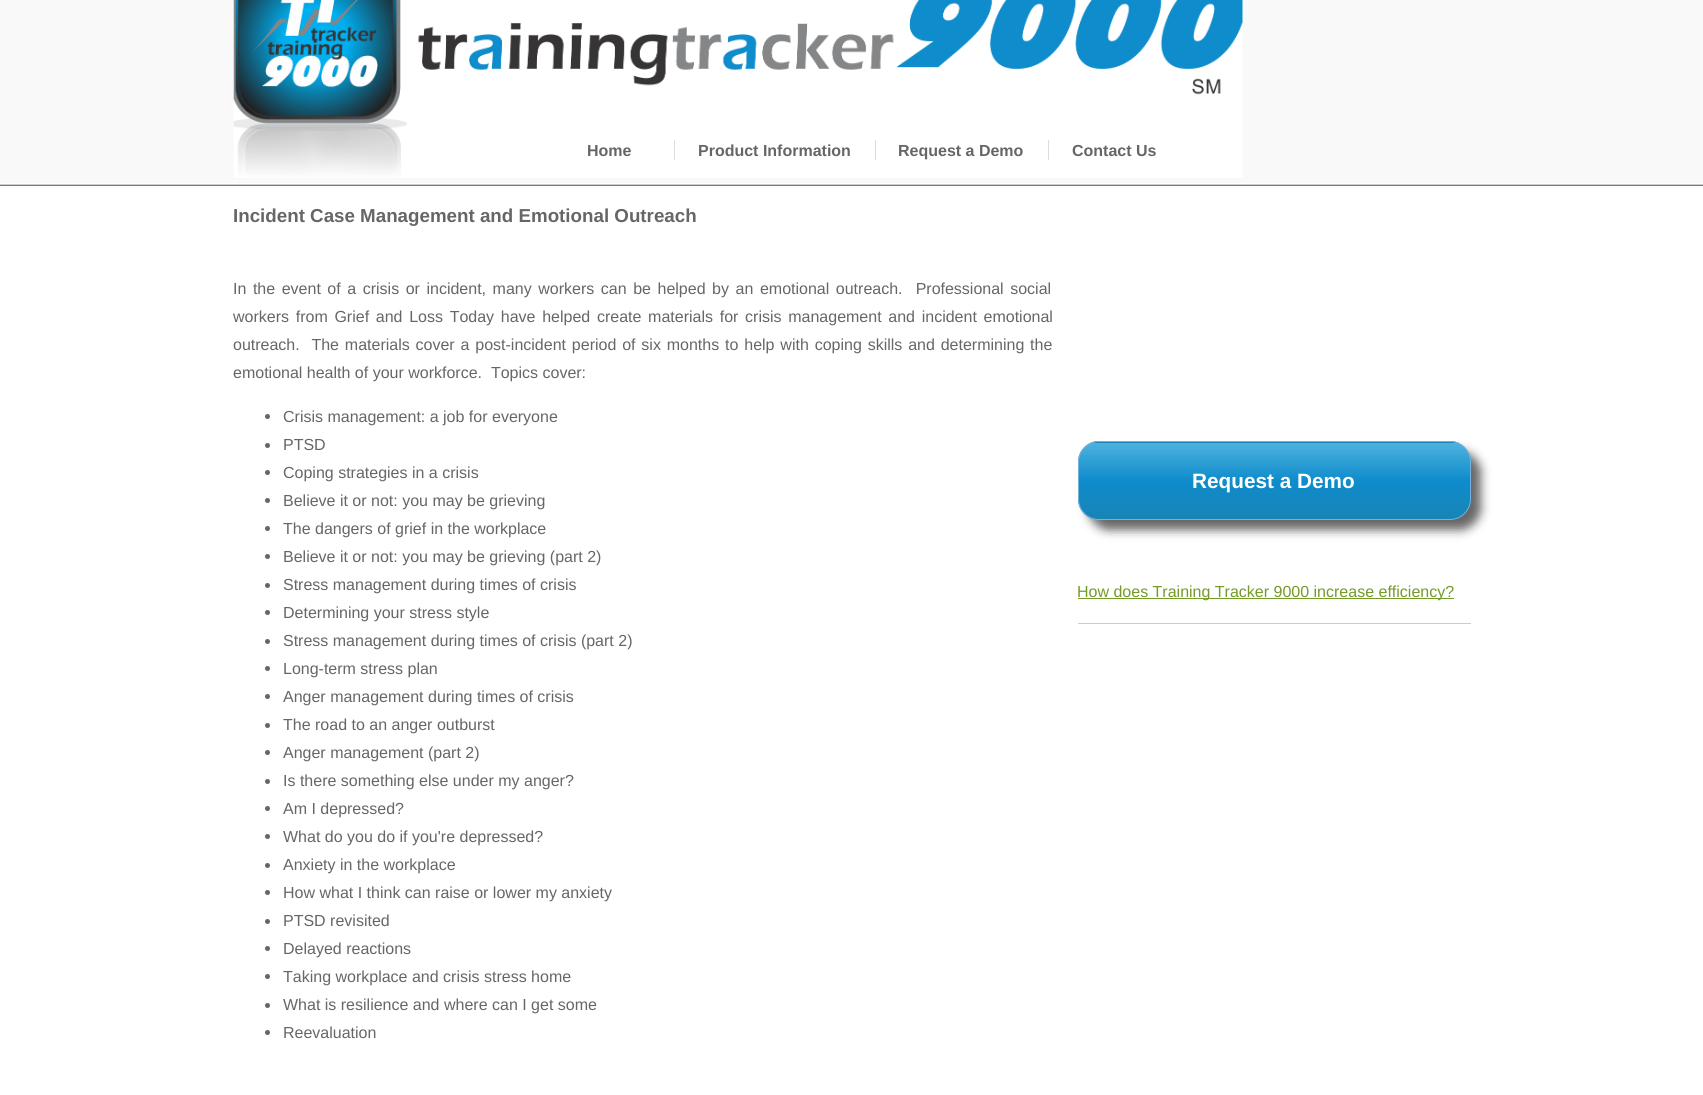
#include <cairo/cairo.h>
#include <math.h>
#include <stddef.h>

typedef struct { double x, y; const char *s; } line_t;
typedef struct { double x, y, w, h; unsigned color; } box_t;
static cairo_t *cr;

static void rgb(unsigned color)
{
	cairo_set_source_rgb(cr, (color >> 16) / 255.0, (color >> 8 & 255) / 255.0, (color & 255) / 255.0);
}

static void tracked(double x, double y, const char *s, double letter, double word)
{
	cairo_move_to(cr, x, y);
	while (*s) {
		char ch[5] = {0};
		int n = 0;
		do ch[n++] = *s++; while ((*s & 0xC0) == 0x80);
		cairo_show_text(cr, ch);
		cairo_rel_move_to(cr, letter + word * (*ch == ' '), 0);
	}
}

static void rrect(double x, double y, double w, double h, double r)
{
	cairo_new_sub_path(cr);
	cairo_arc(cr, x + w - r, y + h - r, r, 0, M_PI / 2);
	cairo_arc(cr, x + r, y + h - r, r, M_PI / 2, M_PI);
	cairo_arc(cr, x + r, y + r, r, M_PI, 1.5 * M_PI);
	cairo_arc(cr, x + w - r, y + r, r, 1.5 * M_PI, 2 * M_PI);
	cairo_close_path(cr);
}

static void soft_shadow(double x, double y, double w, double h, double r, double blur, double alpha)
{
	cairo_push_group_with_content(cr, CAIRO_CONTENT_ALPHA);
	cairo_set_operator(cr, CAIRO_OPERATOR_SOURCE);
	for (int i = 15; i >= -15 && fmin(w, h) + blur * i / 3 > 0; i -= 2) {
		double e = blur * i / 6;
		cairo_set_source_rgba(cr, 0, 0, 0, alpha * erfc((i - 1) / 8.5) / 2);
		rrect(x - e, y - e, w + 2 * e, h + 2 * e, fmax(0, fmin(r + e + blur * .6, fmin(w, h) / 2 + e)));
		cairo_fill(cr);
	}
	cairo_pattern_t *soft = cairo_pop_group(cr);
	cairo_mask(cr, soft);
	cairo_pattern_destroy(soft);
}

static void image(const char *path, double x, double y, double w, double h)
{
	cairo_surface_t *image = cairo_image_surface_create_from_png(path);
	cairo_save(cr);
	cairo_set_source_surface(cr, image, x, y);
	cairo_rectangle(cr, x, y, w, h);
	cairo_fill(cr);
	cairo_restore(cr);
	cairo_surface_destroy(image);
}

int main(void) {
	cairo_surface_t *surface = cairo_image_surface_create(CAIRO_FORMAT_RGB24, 1703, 1095);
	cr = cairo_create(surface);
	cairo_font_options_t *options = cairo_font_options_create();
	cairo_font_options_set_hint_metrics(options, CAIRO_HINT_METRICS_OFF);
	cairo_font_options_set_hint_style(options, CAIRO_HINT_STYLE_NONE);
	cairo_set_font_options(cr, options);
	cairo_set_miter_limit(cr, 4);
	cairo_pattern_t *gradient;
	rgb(0xffffff);
	cairo_paint(cr);
	{
		static const box_t items[] = {
			{0, 185, 1703, 1, 0x777777},
			{0, 184, 1703, 1, 0xcccccc},
			{0, 0, 1703, 183, 0xf9f9f9},
		};
		for (size_t i = 0; i < sizeof items / sizeof *items; i++) {
			rgb(items[i].color);
			cairo_rectangle(cr, items[i].x, items[i].y, items[i].w, items[i].h);
			cairo_fill(cr);
		}
	}
	image("img/1.png", 233, 0, 1010, 178);
	{
		static const box_t items[] = {
			{674, 140, 1, 20, 0xdddddd},
			{875, 140, 1, 20, 0xdddddd},
			{1048, 140, 1, 20, 0xdddddd},
		};
		for (size_t i = 0; i < sizeof items / sizeof *items; i++) {
			rgb(items[i].color);
			cairo_rectangle(cr, items[i].x, items[i].y, items[i].w, items[i].h);
			cairo_fill(cr);
		}
	}
	rgb(0x666666);
	cairo_arc(cr, 267.5, 416.5, 2.5, 0, 2 * M_PI);
	cairo_fill(cr);
	cairo_arc(cr, 267.5, 445.5, 2.5, 0, 2 * M_PI);
	cairo_fill(cr);
	cairo_arc(cr, 267.5, 472.5, 2.5, 0, 2 * M_PI);
	cairo_fill(cr);
	cairo_arc(cr, 267.5, 500.5, 2.5, 0, 2 * M_PI);
	cairo_fill(cr);
	cairo_arc(cr, 267.5, 528.5, 2.5, 0, 2 * M_PI);
	cairo_fill(cr);
	cairo_arc(cr, 267.5, 556.5, 2.5, 0, 2 * M_PI);
	cairo_fill(cr);
	cairo_arc(cr, 267.5, 585.5, 2.5, 0, 2 * M_PI);
	cairo_fill(cr);
	cairo_arc(cr, 267.5, 612.5, 2.5, 0, 2 * M_PI);
	cairo_fill(cr);
	cairo_arc(cr, 267.5, 641.5, 2.5, 0, 2 * M_PI);
	cairo_fill(cr);
	cairo_arc(cr, 267.5, 668.5, 2.5, 0, 2 * M_PI);
	cairo_fill(cr);
	cairo_arc(cr, 267.5, 696.5, 2.5, 0, 2 * M_PI);
	cairo_fill(cr);
	cairo_arc(cr, 267.5, 725.5, 2.5, 0, 2 * M_PI);
	cairo_fill(cr);
	cairo_arc(cr, 267.5, 752.5, 2.5, 0, 2 * M_PI);
	cairo_fill(cr);
	cairo_arc(cr, 267.5, 781.5, 2.5, 0, 2 * M_PI);
	cairo_fill(cr);
	cairo_arc(cr, 267.5, 808.5, 2.5, 0, 2 * M_PI);
	cairo_fill(cr);
	cairo_arc(cr, 267.5, 836.5, 2.5, 0, 2 * M_PI);
	cairo_fill(cr);
	cairo_arc(cr, 267.5, 865.5, 2.5, 0, 2 * M_PI);
	cairo_fill(cr);
	cairo_arc(cr, 267.5, 892.5, 2.5, 0, 2 * M_PI);
	cairo_fill(cr);
	cairo_arc(cr, 267.5, 921.5, 2.5, 0, 2 * M_PI);
	cairo_fill(cr);
	cairo_arc(cr, 267.5, 948.5, 2.5, 0, 2 * M_PI);
	cairo_fill(cr);
	cairo_arc(cr, 267.5, 976.5, 2.5, 0, 2 * M_PI);
	cairo_fill(cr);
	cairo_arc(cr, 267.5, 1005.5, 2.5, 0, 2 * M_PI);
	cairo_fill(cr);
	cairo_arc(cr, 267.5, 1032.5, 2.5, 0, 2 * M_PI);
	cairo_fill(cr);
	rgb(0x666666);
	soft_shadow(1088, 451, 393, 79, 21, 5, 1);
	cairo_save(cr);
	rrect(1078, 441, 393, 79, 21);
	cairo_clip(cr);
	gradient = cairo_pattern_create_linear(1274, 366, 1274, 443);
	cairo_pattern_add_color_stop_rgba(gradient, 0, 0.306, 0.694, 0.867, 1);
	cairo_pattern_add_color_stop_rgba(gradient, 0.5, 0.055, 0.549, 0.8, 1);
	cairo_pattern_add_color_stop_rgba(gradient, 1, 0.098, 0.518, 0.71, 1);
	cairo_set_source(cr, gradient);
	cairo_pattern_destroy(gradient);
	cairo_rectangle(cr, 1090, 441, 369, 2);
	cairo_fill(cr);
	gradient = cairo_pattern_create_linear(1274, 443, 1274, 519);
	cairo_pattern_add_color_stop_rgba(gradient, 0, 0.306, 0.694, 0.867, 1);
	cairo_pattern_add_color_stop_rgba(gradient, 0.5, 0.055, 0.549, 0.8, 1);
	cairo_pattern_add_color_stop_rgba(gradient, 1, 0.098, 0.518, 0.71, 1);
	cairo_set_source(cr, gradient);
	cairo_pattern_destroy(gradient);
	cairo_rectangle(cr, 1078, 443, 393, 76);
	cairo_fill(cr);
	cairo_restore(cr);
	rrect(1078.5, 441.5, 392, 78, 20.5);
	rgb(0x76b0dd);
	cairo_set_line_width(cr, 1);
	cairo_stroke(cr);
	rgb(0xcccccc);
	cairo_rectangle(cr, 1078, 623, 393, 1);
	cairo_fill(cr);
	rgb(0x749a27);
	cairo_rectangle(cr, 1078, 598, 376, 1);
	cairo_fill(cr);
	cairo_select_font_face(cr, "Liberation Sans", CAIRO_FONT_SLANT_NORMAL, CAIRO_FONT_WEIGHT_BOLD);
	cairo_set_font_size(cr, 16);
	rgb(0x666666);
	{
		static const line_t items[] = {
			{587, 156, "Home"},
			{698, 156, "Product Information"},
			{898, 156, "Request a Demo"},
			{1072, 156, "Contact Us"},
		};
		for (size_t i = 0; i < sizeof items / sizeof *items; i++) {
			cairo_move_to(cr, items[i].x, items[i].y);
			cairo_show_text(cr, items[i].s);
		}
	}
	cairo_set_font_size(cr, 18.75);
	cairo_move_to(cr, 233, 222);
	cairo_show_text(cr, "Incident Case Management and Emotional Outreach");
	cairo_select_font_face(cr, "Liberation Sans", CAIRO_FONT_SLANT_NORMAL, CAIRO_FONT_WEIGHT_NORMAL);
	cairo_set_font_size(cr, 16);
	tracked(233, 294, "In the event of a crisis or incident, many workers can be helped by an emotional outreach.  Professional social", 0, 2.1);
	tracked(233, 322, "workers from Grief and Loss Today have helped create materials for crisis management and incident emotional", 0, 2.25);
	tracked(233, 350, "outreach.  The materials cover a post-incident period of six months to help with coping skills and determining the", 0, 1.4);
	{
		static const line_t items[] = {
			{233, 378, "emotional health of your workforce.  Topics cover:"},
			{283, 422, "Crisis management: a job for everyone"},
			{283, 450, "PTSD"},
			{283, 478, "Coping strategies in a crisis"},
			{283, 506, "Believe it or not: you may be grieving"},
			{283, 534, "The dangers of grief in the workplace"},
			{283, 562, "Believe it or not: you may be grieving (part 2)"},
			{283, 590, "Stress management during times of crisis"},
			{283, 618, "Determining your stress style"},
			{283, 646, "Stress management during times of crisis (part 2)"},
			{283, 674, "Long-term stress plan"},
			{283, 702, "Anger management during times of crisis"},
			{283, 730, "The road to an anger outburst"},
			{283, 758, "Anger management (part 2)"},
			{283, 786, "Is there something else under my anger?"},
			{283, 814, "Am I depressed?"},
			{283, 842, "What do you do if you're depressed?"},
			{283, 870, "Anxiety in the workplace"},
			{283, 898, "How what I think can raise or lower my anxiety"},
			{283, 926, "PTSD revisited"},
			{283, 954, "Delayed reactions"},
			{283, 982, "Taking workplace and crisis stress home"},
			{283, 1010, "What is resilience and where can I get some"},
			{283, 1038, "Reevaluation"},
		};
		for (size_t i = 0; i < sizeof items / sizeof *items; i++) {
			cairo_move_to(cr, items[i].x, items[i].y);
			cairo_show_text(cr, items[i].s);
		}
	}
	cairo_select_font_face(cr, "Liberation Sans", CAIRO_FONT_SLANT_NORMAL, CAIRO_FONT_WEIGHT_BOLD);
	cairo_set_font_size(cr, 20.75);
	rgb(0xffffff);
	cairo_move_to(cr, 1192, 488);
	cairo_show_text(cr, "Request a Demo");
	cairo_select_font_face(cr, "Liberation Sans", CAIRO_FONT_SLANT_NORMAL, CAIRO_FONT_WEIGHT_NORMAL);
	cairo_set_font_size(cr, 16);
	rgb(0x749a27);
	cairo_move_to(cr, 1077, 597);
	cairo_show_text(cr, "How does Training Tracker 9000 increase efficiency?");
	cairo_surface_write_to_png(surface, "page.png");
	cairo_font_options_destroy(options);
	cairo_destroy(cr);
	cairo_surface_destroy(surface);
	return 0;
}
